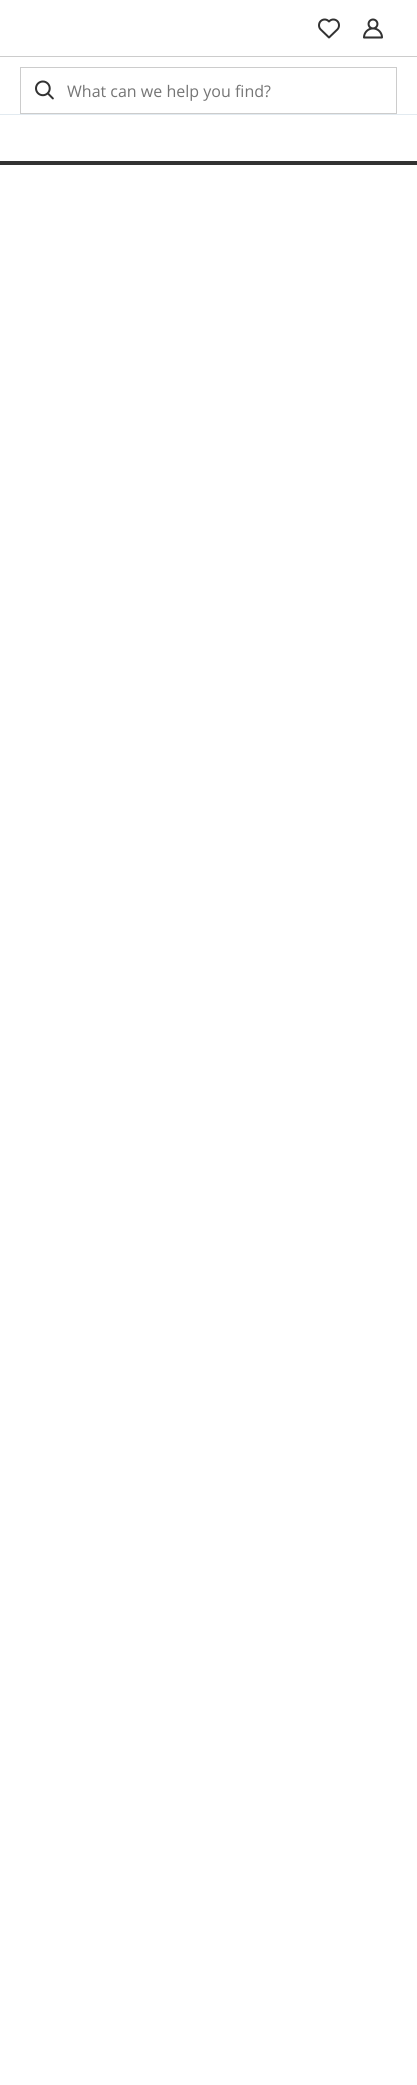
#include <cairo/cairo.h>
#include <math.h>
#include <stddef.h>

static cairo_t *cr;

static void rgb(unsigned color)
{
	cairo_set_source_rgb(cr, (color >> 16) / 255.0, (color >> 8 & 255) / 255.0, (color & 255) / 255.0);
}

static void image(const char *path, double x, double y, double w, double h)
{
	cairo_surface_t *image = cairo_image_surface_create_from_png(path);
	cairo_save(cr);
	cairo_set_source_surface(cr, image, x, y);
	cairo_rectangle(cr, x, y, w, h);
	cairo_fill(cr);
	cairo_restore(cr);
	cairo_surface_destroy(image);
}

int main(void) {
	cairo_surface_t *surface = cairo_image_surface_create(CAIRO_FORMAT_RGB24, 417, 2085);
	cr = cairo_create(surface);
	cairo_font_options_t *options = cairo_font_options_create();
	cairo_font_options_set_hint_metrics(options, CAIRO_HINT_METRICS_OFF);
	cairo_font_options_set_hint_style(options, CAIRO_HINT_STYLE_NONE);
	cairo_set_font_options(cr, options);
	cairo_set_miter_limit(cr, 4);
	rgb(0xffffff);
	cairo_paint(cr);
	rgb(0xcccccc);
	cairo_rectangle(cr, 0, 56, 417, 1);
	cairo_fill(cr);
	image("img/1.png", 318, 18, 22, 21);
	image("img/2.png", 363, 18, 20, 21);
	cairo_rectangle(cr, 20.5, 67.5, 376, 46);
	cairo_set_line_width(cr, 1);
	cairo_stroke(cr);
	image("img/3.png", 35, 80, 19, 20);
	rgb(0xe2eaf0);
	cairo_rectangle(cr, 0, 114, 417, 1);
	cairo_fill(cr);
	rgb(0x323232);
	cairo_rectangle(cr, 0, 161, 417, 4);
	cairo_fill(cr);
	cairo_select_font_face(cr, "Open Sans", CAIRO_FONT_SLANT_NORMAL, CAIRO_FONT_WEIGHT_NORMAL);
	cairo_set_font_size(cr, 16);
	rgb(0x757575);
	cairo_move_to(cr, 67, 97);
	cairo_show_text(cr, "What can we help you find?");
	cairo_surface_write_to_png(surface, "page.png");
	cairo_font_options_destroy(options);
	cairo_destroy(cr);
	cairo_surface_destroy(surface);
	return 0;
}
